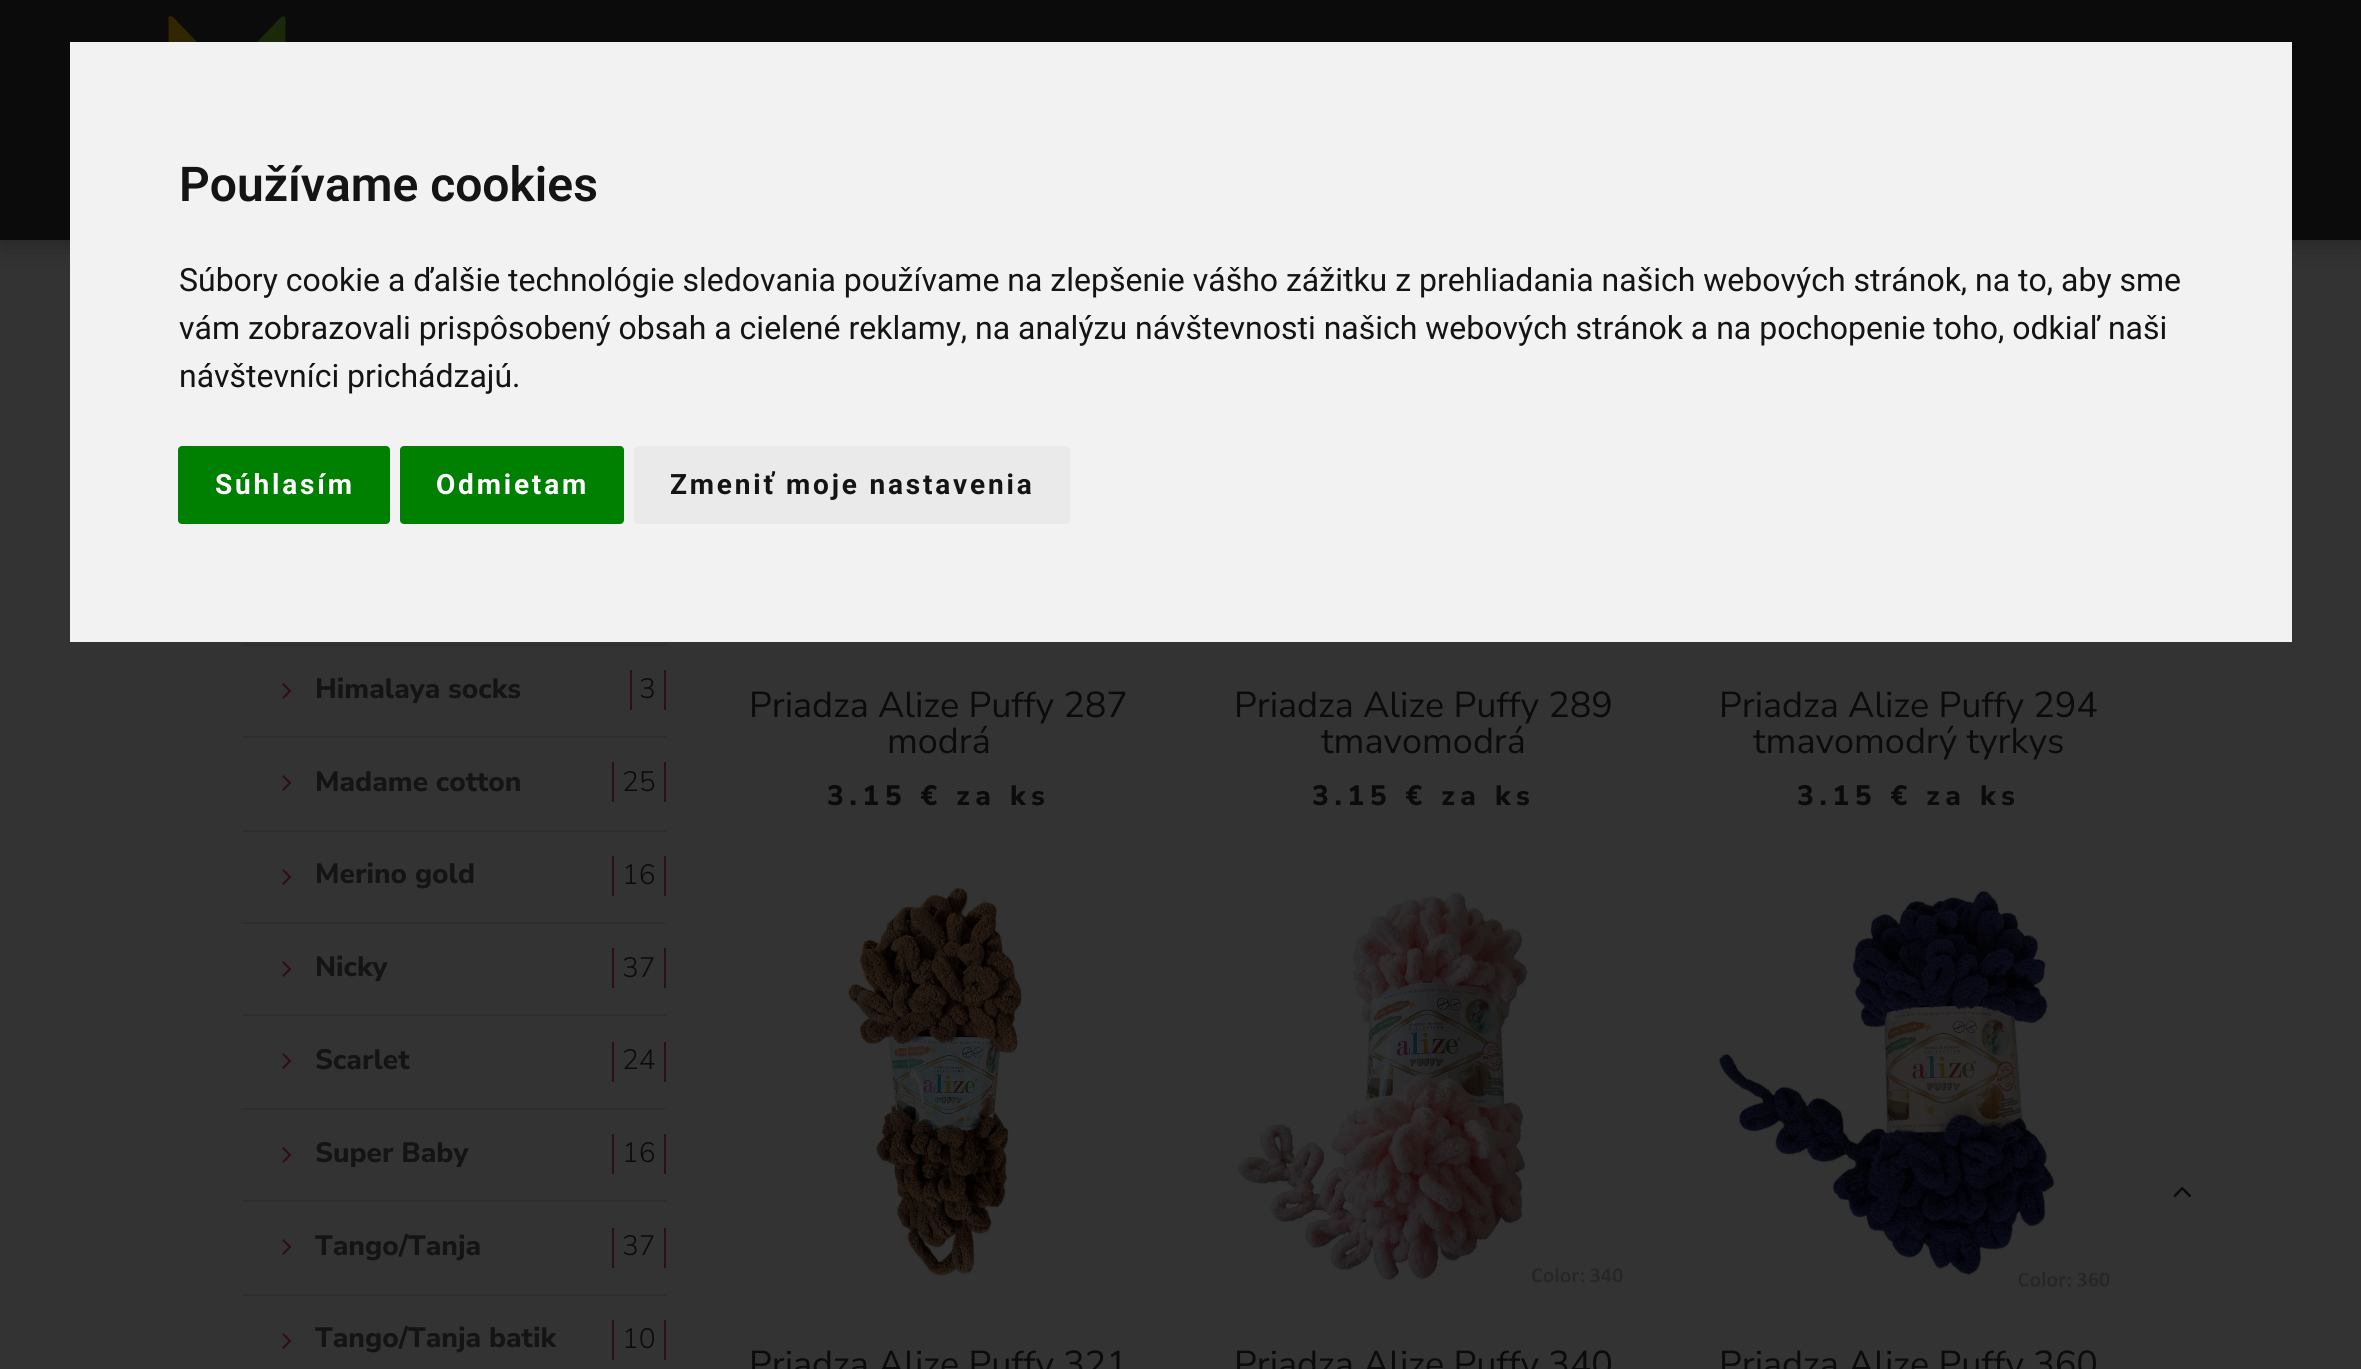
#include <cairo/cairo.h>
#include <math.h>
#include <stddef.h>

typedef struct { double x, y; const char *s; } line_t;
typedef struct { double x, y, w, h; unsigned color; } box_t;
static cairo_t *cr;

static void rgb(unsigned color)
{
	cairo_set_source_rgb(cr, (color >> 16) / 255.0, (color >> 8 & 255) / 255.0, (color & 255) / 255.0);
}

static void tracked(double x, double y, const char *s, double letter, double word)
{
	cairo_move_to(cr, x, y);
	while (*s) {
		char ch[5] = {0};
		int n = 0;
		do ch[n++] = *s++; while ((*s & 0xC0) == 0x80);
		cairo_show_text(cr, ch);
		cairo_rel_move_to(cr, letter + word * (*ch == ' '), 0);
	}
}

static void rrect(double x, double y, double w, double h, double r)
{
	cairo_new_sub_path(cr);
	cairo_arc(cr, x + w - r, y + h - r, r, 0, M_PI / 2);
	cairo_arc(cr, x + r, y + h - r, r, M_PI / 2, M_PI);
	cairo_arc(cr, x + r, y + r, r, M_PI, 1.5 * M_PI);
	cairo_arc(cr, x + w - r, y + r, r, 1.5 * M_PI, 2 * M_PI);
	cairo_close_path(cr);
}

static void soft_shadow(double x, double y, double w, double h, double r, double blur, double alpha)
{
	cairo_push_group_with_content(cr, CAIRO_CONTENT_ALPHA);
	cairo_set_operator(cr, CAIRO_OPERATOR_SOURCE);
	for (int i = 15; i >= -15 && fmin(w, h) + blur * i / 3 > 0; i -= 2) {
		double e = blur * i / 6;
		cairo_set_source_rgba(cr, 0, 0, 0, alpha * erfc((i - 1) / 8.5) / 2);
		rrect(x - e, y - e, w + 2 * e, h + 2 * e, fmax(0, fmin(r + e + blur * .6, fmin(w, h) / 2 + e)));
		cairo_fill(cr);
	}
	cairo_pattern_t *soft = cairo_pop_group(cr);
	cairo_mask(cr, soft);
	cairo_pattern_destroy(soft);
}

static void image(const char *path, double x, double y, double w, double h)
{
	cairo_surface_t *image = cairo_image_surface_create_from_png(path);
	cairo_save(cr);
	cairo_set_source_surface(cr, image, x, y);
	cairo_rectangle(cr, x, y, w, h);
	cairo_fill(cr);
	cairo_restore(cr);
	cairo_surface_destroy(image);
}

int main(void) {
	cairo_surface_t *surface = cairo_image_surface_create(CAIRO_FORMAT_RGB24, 2361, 1369);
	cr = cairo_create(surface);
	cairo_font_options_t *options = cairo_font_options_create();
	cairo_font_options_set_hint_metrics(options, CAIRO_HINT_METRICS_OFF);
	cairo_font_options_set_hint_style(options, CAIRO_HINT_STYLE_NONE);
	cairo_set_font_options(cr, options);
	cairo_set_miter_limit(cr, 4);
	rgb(0x333333);
	cairo_paint(cr);
	rgb(0x000000);
	soft_shadow(0, 2, 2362, 240, 0, 15, 0.3);
	rgb(0x0b0b0b);
	cairo_rectangle(cr, 0, 0, 2361, 240);
	cairo_fill(cr);
	rgb(0xf2f2f2);
	cairo_rectangle(cr, 70, 42, 2222, 600);
	cairo_fill(cr);
	rgb(0x008000);
	rrect(178, 446, 212, 78, 4);
	cairo_fill(cr);
	rrect(400, 446, 224, 78, 4);
	cairo_fill(cr);
	rgb(0xeaeaea);
	rrect(634, 446, 436, 78, 4);
	cairo_fill(cr);
	image("img/1.png", 168, 16, 118, 26);
	rgb(0x2e2e2e);
	cairo_rectangle(cr, 242, 644, 424, 2);
	cairo_fill(cr);
	image("img/2.png", 282, 683, 10, 16);
	{
		static const box_t items[] = {
			{664, 670, 2, 40, 0x2e0f18},
			{630, 670, 2, 40, 0x2e0f18},
			{242, 736, 424, 2, 0x2e2e2e},
		};
		for (size_t i = 0; i < sizeof items / sizeof *items; i++) {
			rgb(items[i].color);
			cairo_rectangle(cr, items[i].x, items[i].y, items[i].w, items[i].h);
			cairo_fill(cr);
		}
	}
	image("img/2.png", 282, 775, 10, 16);
	{
		static const box_t items[] = {
			{664, 762, 2, 40, 0x2e0f18},
			{612, 762, 2, 40, 0x2e0f18},
			{242, 830, 424, 2, 0x2e2e2e},
		};
		for (size_t i = 0; i < sizeof items / sizeof *items; i++) {
			rgb(items[i].color);
			cairo_rectangle(cr, items[i].x, items[i].y, items[i].w, items[i].h);
			cairo_fill(cr);
		}
	}
	image("img/2.png", 282, 869, 10, 16);
	{
		static const box_t items[] = {
			{664, 856, 2, 40, 0x2e0f18},
			{612, 856, 2, 40, 0x2e0f18},
			{242, 922, 424, 2, 0x2e2e2e},
		};
		for (size_t i = 0; i < sizeof items / sizeof *items; i++) {
			rgb(items[i].color);
			cairo_rectangle(cr, items[i].x, items[i].y, items[i].w, items[i].h);
			cairo_fill(cr);
		}
	}
	image("img/2.png", 282, 961, 10, 16);
	{
		static const box_t items[] = {
			{664, 948, 2, 40, 0x2e0f18},
			{612, 948, 2, 40, 0x2e0f18},
			{242, 1014, 424, 2, 0x2e2e2e},
		};
		for (size_t i = 0; i < sizeof items / sizeof *items; i++) {
			rgb(items[i].color);
			cairo_rectangle(cr, items[i].x, items[i].y, items[i].w, items[i].h);
			cairo_fill(cr);
		}
	}
	image("img/2.png", 282, 1053, 10, 16);
	{
		static const box_t items[] = {
			{664, 1042, 2, 40, 0x2e0f18},
			{612, 1042, 2, 40, 0x2e0f18},
			{242, 1108, 424, 2, 0x2e2e2e},
		};
		for (size_t i = 0; i < sizeof items / sizeof *items; i++) {
			rgb(items[i].color);
			cairo_rectangle(cr, items[i].x, items[i].y, items[i].w, items[i].h);
			cairo_fill(cr);
		}
	}
	image("img/2.png", 282, 1147, 10, 16);
	{
		static const box_t items[] = {
			{664, 1134, 2, 40, 0x2e0f18},
			{612, 1134, 2, 40, 0x2e0f18},
			{242, 1200, 424, 2, 0x2e2e2e},
		};
		for (size_t i = 0; i < sizeof items / sizeof *items; i++) {
			rgb(items[i].color);
			cairo_rectangle(cr, items[i].x, items[i].y, items[i].w, items[i].h);
			cairo_fill(cr);
		}
	}
	image("img/2.png", 282, 1239, 10, 16);
	{
		static const box_t items[] = {
			{664, 1228, 2, 40, 0x2e0f18},
			{612, 1228, 2, 40, 0x2e0f18},
			{242, 1294, 424, 2, 0x2e2e2e},
		};
		for (size_t i = 0; i < sizeof items / sizeof *items; i++) {
			rgb(items[i].color);
			cairo_rectangle(cr, items[i].x, items[i].y, items[i].w, items[i].h);
			cairo_fill(cr);
		}
	}
	image("img/2.png", 282, 1333, 10, 16);
	rgb(0x2e0f18);
	cairo_rectangle(cr, 664, 1320, 2, 40);
	cairo_fill(cr);
	cairo_rectangle(cr, 612, 1320, 2, 40);
	cairo_fill(cr);
	image("img/3.png", 845, 885, 179, 392);
	image("img/4.png", 1237, 892, 386, 391);
	image("img/5.png", 1717, 890, 393, 398);
	image("img/6.png", 2173, 1186, 19, 12);
	cairo_select_font_face(cr, "Roboto SemiBold", CAIRO_FONT_SLANT_NORMAL, CAIRO_FONT_WEIGHT_NORMAL);
	cairo_set_font_size(cr, 48);
	rgb(0x141414);
	cairo_move_to(cr, 179, 201);
	cairo_show_text(cr, "Používame cookies");
	cairo_select_font_face(cr, "Roboto", CAIRO_FONT_SLANT_NORMAL, CAIRO_FONT_WEIGHT_NORMAL);
	cairo_set_font_size(cr, 32);
	{
		static const line_t items[] = {
			{179, 291, "Súbory cookie a ďalšie technológie sledovania používame na zlepšenie vášho zážitku z prehliadania našich webových stránok, na to, aby sme"},
			{179, 339, "vám zobrazovali prispôsobený obsah a cielené reklamy, na analýzu návštevnosti našich webových stránok a na pochopenie toho, odkiaľ naši"},
			{179, 387, "návštevníci prichádzajú."},
		};
		for (size_t i = 0; i < sizeof items / sizeof *items; i++) {
			cairo_move_to(cr, items[i].x, items[i].y);
			cairo_show_text(cr, items[i].s);
		}
	}
	cairo_select_font_face(cr, "Roboto", CAIRO_FONT_SLANT_NORMAL, CAIRO_FONT_WEIGHT_BOLD);
	cairo_set_font_size(cr, 28);
	rgb(0xffffff);
	tracked(215, 494, "Súhlasím", 2.8, 0);
	tracked(436, 494, "Odmietam", 2.8, 0);
	rgb(0x141414);
	tracked(670, 494, "Zmeniť moje nastavenia", 2.8, 0);
	cairo_select_font_face(cr, "Nunito Sans ExtraBold", CAIRO_FONT_SLANT_NORMAL, CAIRO_FONT_WEIGHT_NORMAL);
	cairo_move_to(cr, 315, 698);
	cairo_show_text(cr, "Himalaya socks");
	cairo_select_font_face(cr, "Nunito Sans Light", CAIRO_FONT_SLANT_NORMAL, CAIRO_FONT_WEIGHT_NORMAL);
	rgb(0x0b0b0b);
	cairo_move_to(cr, 639, 698);
	cairo_show_text(cr, "3");
	cairo_select_font_face(cr, "Nunito Sans ExtraBold", CAIRO_FONT_SLANT_NORMAL, CAIRO_FONT_WEIGHT_NORMAL);
	rgb(0x141414);
	cairo_move_to(cr, 315, 791);
	cairo_show_text(cr, "Madame cotton");
	cairo_select_font_face(cr, "Nunito Sans Light", CAIRO_FONT_SLANT_NORMAL, CAIRO_FONT_WEIGHT_NORMAL);
	rgb(0x0b0b0b);
	cairo_move_to(cr, 622, 791);
	cairo_show_text(cr, "25");
	cairo_select_font_face(cr, "Nunito Sans ExtraBold", CAIRO_FONT_SLANT_NORMAL, CAIRO_FONT_WEIGHT_NORMAL);
	rgb(0x141414);
	cairo_move_to(cr, 315, 883);
	cairo_show_text(cr, "Merino gold");
	cairo_select_font_face(cr, "Nunito Sans Light", CAIRO_FONT_SLANT_NORMAL, CAIRO_FONT_WEIGHT_NORMAL);
	rgb(0x0b0b0b);
	cairo_move_to(cr, 622, 884);
	cairo_show_text(cr, "16");
	cairo_select_font_face(cr, "Nunito Sans ExtraBold", CAIRO_FONT_SLANT_NORMAL, CAIRO_FONT_WEIGHT_NORMAL);
	rgb(0x141414);
	cairo_move_to(cr, 315, 976);
	cairo_show_text(cr, "Nicky");
	cairo_select_font_face(cr, "Nunito Sans Light", CAIRO_FONT_SLANT_NORMAL, CAIRO_FONT_WEIGHT_NORMAL);
	rgb(0x0b0b0b);
	cairo_move_to(cr, 622, 977);
	cairo_show_text(cr, "37");
	cairo_select_font_face(cr, "Nunito Sans ExtraBold", CAIRO_FONT_SLANT_NORMAL, CAIRO_FONT_WEIGHT_NORMAL);
	rgb(0x141414);
	cairo_move_to(cr, 315, 1069);
	cairo_show_text(cr, "Scarlet");
	cairo_select_font_face(cr, "Nunito Sans Light", CAIRO_FONT_SLANT_NORMAL, CAIRO_FONT_WEIGHT_NORMAL);
	rgb(0x0b0b0b);
	cairo_move_to(cr, 622, 1069);
	cairo_show_text(cr, "24");
	cairo_select_font_face(cr, "Nunito Sans ExtraBold", CAIRO_FONT_SLANT_NORMAL, CAIRO_FONT_WEIGHT_NORMAL);
	rgb(0x141414);
	cairo_move_to(cr, 315, 1162);
	cairo_show_text(cr, "Super Baby");
	cairo_select_font_face(cr, "Nunito Sans Light", CAIRO_FONT_SLANT_NORMAL, CAIRO_FONT_WEIGHT_NORMAL);
	rgb(0x0b0b0b);
	cairo_move_to(cr, 622, 1162);
	cairo_show_text(cr, "16");
	cairo_select_font_face(cr, "Nunito Sans ExtraBold", CAIRO_FONT_SLANT_NORMAL, CAIRO_FONT_WEIGHT_NORMAL);
	rgb(0x141414);
	cairo_move_to(cr, 315, 1255);
	cairo_show_text(cr, "Tango/Tanja");
	cairo_select_font_face(cr, "Nunito Sans Light", CAIRO_FONT_SLANT_NORMAL, CAIRO_FONT_WEIGHT_NORMAL);
	rgb(0x0b0b0b);
	cairo_move_to(cr, 622, 1255);
	cairo_show_text(cr, "37");
	cairo_select_font_face(cr, "Nunito Sans ExtraBold", CAIRO_FONT_SLANT_NORMAL, CAIRO_FONT_WEIGHT_NORMAL);
	rgb(0x141414);
	cairo_move_to(cr, 315, 1347);
	cairo_show_text(cr, "Tango/Tanja batik");
	cairo_select_font_face(cr, "Nunito Sans Light", CAIRO_FONT_SLANT_NORMAL, CAIRO_FONT_WEIGHT_NORMAL);
	rgb(0x0b0b0b);
	cairo_move_to(cr, 622, 1348);
	cairo_show_text(cr, "10");
	cairo_select_font_face(cr, "Nunito Sans", CAIRO_FONT_SLANT_NORMAL, CAIRO_FONT_WEIGHT_NORMAL);
	cairo_set_font_size(cr, 36);
	cairo_move_to(cr, 749, 717);
	cairo_show_text(cr, "Priadza Alize Puffy 287");
	cairo_move_to(cr, 887, 753);
	cairo_show_text(cr, "modrá");
	cairo_select_font_face(cr, "Nunito Sans ExtraBold", CAIRO_FONT_SLANT_NORMAL, CAIRO_FONT_WEIGHT_NORMAL);
	cairo_set_font_size(cr, 28);
	tracked(827, 805, "3.15 € za ks", 5.6, 0);
	cairo_select_font_face(cr, "Nunito Sans", CAIRO_FONT_SLANT_NORMAL, CAIRO_FONT_WEIGHT_NORMAL);
	cairo_set_font_size(cr, 36);
	cairo_move_to(cr, 1234, 717);
	cairo_show_text(cr, "Priadza Alize Puffy 289");
	cairo_move_to(cr, 1321, 753);
	cairo_show_text(cr, "tmavomodrá");
	cairo_select_font_face(cr, "Nunito Sans ExtraBold", CAIRO_FONT_SLANT_NORMAL, CAIRO_FONT_WEIGHT_NORMAL);
	cairo_set_font_size(cr, 28);
	tracked(1312, 805, "3.15 € za ks", 5.6, 0);
	cairo_select_font_face(cr, "Nunito Sans", CAIRO_FONT_SLANT_NORMAL, CAIRO_FONT_WEIGHT_NORMAL);
	cairo_set_font_size(cr, 36);
	cairo_move_to(cr, 1719, 717);
	cairo_show_text(cr, "Priadza Alize Puffy 294");
	cairo_move_to(cr, 1753, 753);
	cairo_show_text(cr, "tmavomodrý tyrkys");
	cairo_select_font_face(cr, "Nunito Sans ExtraBold", CAIRO_FONT_SLANT_NORMAL, CAIRO_FONT_WEIGHT_NORMAL);
	cairo_set_font_size(cr, 28);
	tracked(1797, 805, "3.15 € za ks", 5.6, 0);
	cairo_select_font_face(cr, "Nunito Sans", CAIRO_FONT_SLANT_NORMAL, CAIRO_FONT_WEIGHT_NORMAL);
	cairo_set_font_size(cr, 36);
	{
		static const line_t items[] = {
			{749, 1376, "Priadza Alize Puffy 321"},
			{1234, 1376, "Priadza Alize Puffy 340"},
			{1719, 1376, "Priadza Alize Puffy 360"},
		};
		for (size_t i = 0; i < sizeof items / sizeof *items; i++) {
			cairo_move_to(cr, items[i].x, items[i].y);
			cairo_show_text(cr, items[i].s);
		}
	}
	cairo_surface_write_to_png(surface, "page.png");
	cairo_font_options_destroy(options);
	cairo_destroy(cr);
	cairo_surface_destroy(surface);
	return 0;
}
